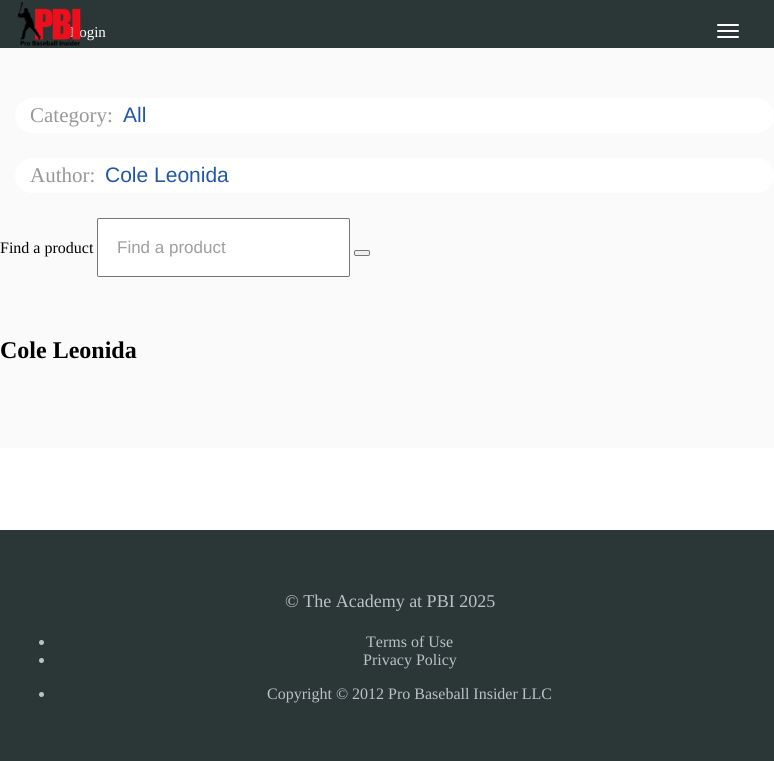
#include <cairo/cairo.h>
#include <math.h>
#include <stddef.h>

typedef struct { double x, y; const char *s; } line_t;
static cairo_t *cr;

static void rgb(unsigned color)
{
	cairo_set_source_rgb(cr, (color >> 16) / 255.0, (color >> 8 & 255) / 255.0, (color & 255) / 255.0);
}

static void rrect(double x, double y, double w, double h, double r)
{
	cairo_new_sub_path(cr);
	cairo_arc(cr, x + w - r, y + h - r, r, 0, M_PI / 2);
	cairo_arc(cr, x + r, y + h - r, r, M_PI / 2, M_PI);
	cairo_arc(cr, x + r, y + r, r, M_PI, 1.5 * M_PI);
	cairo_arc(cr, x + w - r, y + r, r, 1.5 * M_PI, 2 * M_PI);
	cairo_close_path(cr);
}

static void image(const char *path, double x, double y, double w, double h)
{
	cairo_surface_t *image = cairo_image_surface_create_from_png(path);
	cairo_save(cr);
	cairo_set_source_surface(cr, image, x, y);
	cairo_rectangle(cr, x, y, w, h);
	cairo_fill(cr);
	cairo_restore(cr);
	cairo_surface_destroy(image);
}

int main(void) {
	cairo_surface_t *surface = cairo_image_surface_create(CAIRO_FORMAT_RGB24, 774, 761);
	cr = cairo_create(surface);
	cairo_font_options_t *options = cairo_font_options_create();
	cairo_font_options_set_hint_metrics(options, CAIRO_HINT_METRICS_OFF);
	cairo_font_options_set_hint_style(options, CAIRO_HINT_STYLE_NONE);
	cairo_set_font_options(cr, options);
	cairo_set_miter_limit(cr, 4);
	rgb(0xffffff);
	cairo_paint(cr);
	rgb(0x2b3636);
	cairo_rectangle(cr, 0, 0, 774, 48);
	cairo_fill(cr);
	rgb(0xffffff);
	rrect(717, 24, 22, 2, 1);
	cairo_fill(cr);
	rrect(717, 30, 22, 2, 1);
	cairo_fill(cr);
	rrect(717, 36, 22, 2, 1);
	cairo_fill(cr);
	rgb(0xfafafa);
	cairo_rectangle(cr, 0, 48, 774, 400);
	cairo_fill(cr);
	rgb(0xffffff);
	rrect(15, 98, 759, 35, 17.5);
	cairo_fill(cr);
	rrect(15, 158, 759, 35, 17.5);
	cairo_fill(cr);
	rrect(97.5, 218.5, 252, 58, 1.5);
	cairo_fill_preserve(cr);
	rgb(0x767676);
	cairo_set_line_width(cr, 1);
	cairo_stroke(cr);
	rgb(0xefefef);
	rrect(354.5, 250.5, 15, 5, 1.5);
	cairo_fill_preserve(cr);
	rgb(0x767676);
	cairo_stroke(cr);
	rgb(0x2b3636);
	cairo_rectangle(cr, 0, 530, 774, 231);
	cairo_fill(cr);
	rgb(0xbac1c7);
	cairo_arc(cr, 41.5, 642.5, 2.5, 0, 2 * M_PI);
	cairo_fill(cr);
	cairo_arc(cr, 41.5, 660.5, 2.5, 0, 2 * M_PI);
	cairo_fill(cr);
	cairo_arc(cr, 41.5, 694.5, 2.5, 0, 2 * M_PI);
	cairo_fill(cr);
	cairo_select_font_face(cr, "Liberation Serif", CAIRO_FONT_SLANT_NORMAL, CAIRO_FONT_WEIGHT_NORMAL);
	cairo_set_font_size(cr, 15);
	rgb(0xffffff);
	cairo_move_to(cr, 70, 37);
	cairo_show_text(cr, "Login");
	image("img/1.png", 17, 2, 64, 44);
	cairo_set_font_size(cr, 21);
	rgb(0x989898);
	cairo_move_to(cr, 30, 122);
	cairo_show_text(cr, "Category:");
	cairo_select_font_face(cr, "Liberation Sans", CAIRO_FONT_SLANT_NORMAL, CAIRO_FONT_WEIGHT_NORMAL);
	rgb(0x2057a8);
	cairo_move_to(cr, 123, 122);
	cairo_show_text(cr, "All");
	cairo_select_font_face(cr, "Liberation Serif", CAIRO_FONT_SLANT_NORMAL, CAIRO_FONT_WEIGHT_NORMAL);
	rgb(0x989898);
	cairo_move_to(cr, 30, 182);
	cairo_show_text(cr, "Author:");
	cairo_select_font_face(cr, "Liberation Sans", CAIRO_FONT_SLANT_NORMAL, CAIRO_FONT_WEIGHT_NORMAL);
	rgb(0x2057a8);
	cairo_move_to(cr, 105, 182);
	cairo_show_text(cr, "Cole Leonida");
	cairo_select_font_face(cr, "Liberation Serif", CAIRO_FONT_SLANT_NORMAL, CAIRO_FONT_WEIGHT_NORMAL);
	cairo_set_font_size(cr, 16);
	rgb(0x000000);
	cairo_move_to(cr, 0, 253);
	cairo_show_text(cr, "Find a product");
	cairo_select_font_face(cr, "Liberation Sans", CAIRO_FONT_SLANT_NORMAL, CAIRO_FONT_WEIGHT_NORMAL);
	cairo_set_font_size(cr, 17);
	rgb(0x9e9e9e);
	cairo_move_to(cr, 117, 253);
	cairo_show_text(cr, "Find a product");
	cairo_select_font_face(cr, "Liberation Serif", CAIRO_FONT_SLANT_NORMAL, CAIRO_FONT_WEIGHT_BOLD);
	cairo_set_font_size(cr, 24);
	rgb(0x000000);
	cairo_move_to(cr, 0, 358);
	cairo_show_text(cr, "Cole Leonida");
	cairo_select_font_face(cr, "Liberation Serif", CAIRO_FONT_SLANT_NORMAL, CAIRO_FONT_WEIGHT_NORMAL);
	cairo_set_font_size(cr, 18);
	rgb(0xbac1c7);
	cairo_move_to(cr, 285, 607);
	cairo_show_text(cr, "© The Academy at PBI 2025");
	cairo_set_font_size(cr, 16);
	{
		static const line_t items[] = {
			{366, 647, "Terms of Use"},
			{363, 665, "Privacy Policy"},
			{267, 699, "Copyright © 2012 Pro Baseball Insider LLC"},
		};
		for (size_t i = 0; i < sizeof items / sizeof *items; i++) {
			cairo_move_to(cr, items[i].x, items[i].y);
			cairo_show_text(cr, items[i].s);
		}
	}
	cairo_surface_write_to_png(surface, "page.png");
	cairo_font_options_destroy(options);
	cairo_destroy(cr);
	cairo_surface_destroy(surface);
	return 0;
}
